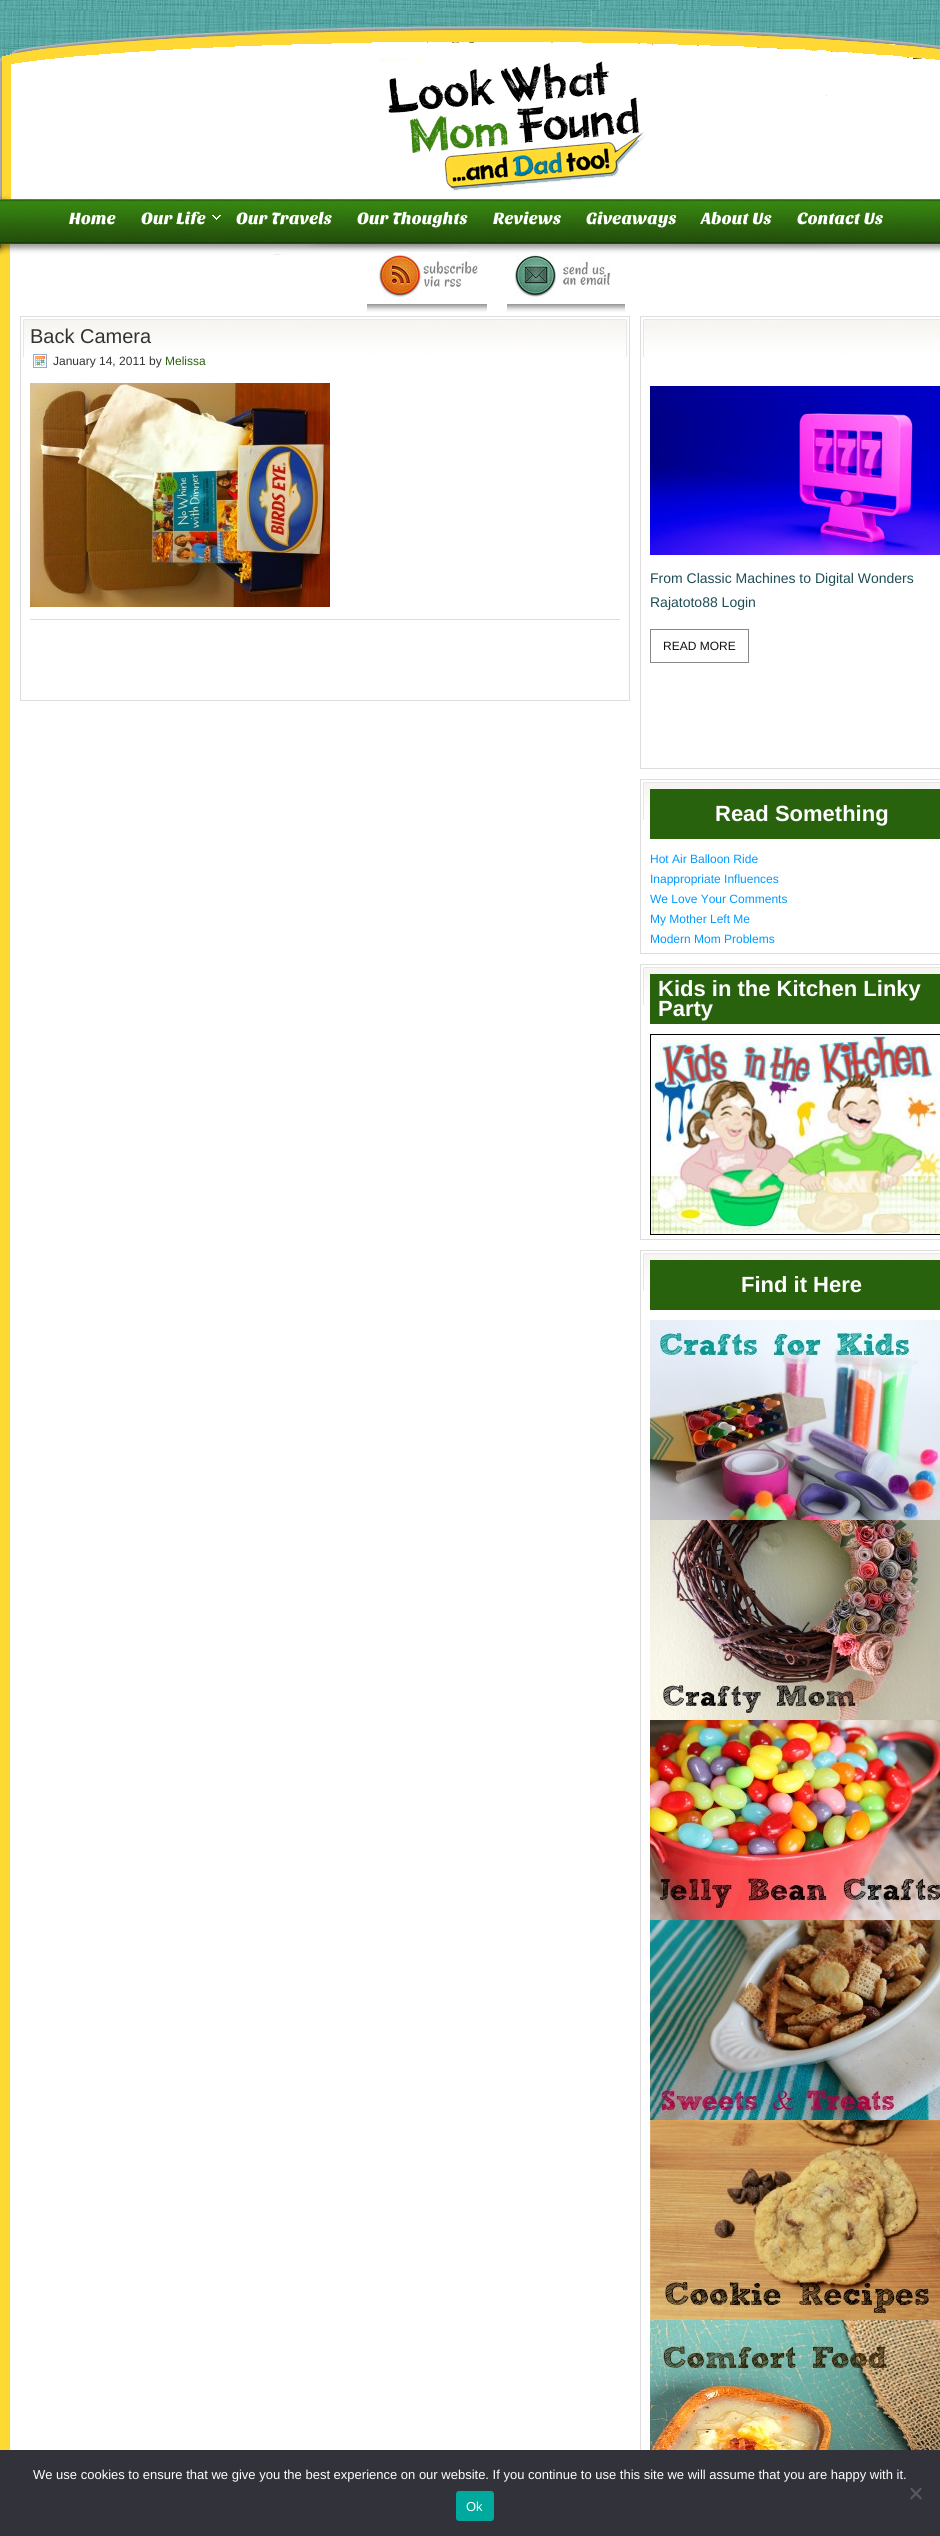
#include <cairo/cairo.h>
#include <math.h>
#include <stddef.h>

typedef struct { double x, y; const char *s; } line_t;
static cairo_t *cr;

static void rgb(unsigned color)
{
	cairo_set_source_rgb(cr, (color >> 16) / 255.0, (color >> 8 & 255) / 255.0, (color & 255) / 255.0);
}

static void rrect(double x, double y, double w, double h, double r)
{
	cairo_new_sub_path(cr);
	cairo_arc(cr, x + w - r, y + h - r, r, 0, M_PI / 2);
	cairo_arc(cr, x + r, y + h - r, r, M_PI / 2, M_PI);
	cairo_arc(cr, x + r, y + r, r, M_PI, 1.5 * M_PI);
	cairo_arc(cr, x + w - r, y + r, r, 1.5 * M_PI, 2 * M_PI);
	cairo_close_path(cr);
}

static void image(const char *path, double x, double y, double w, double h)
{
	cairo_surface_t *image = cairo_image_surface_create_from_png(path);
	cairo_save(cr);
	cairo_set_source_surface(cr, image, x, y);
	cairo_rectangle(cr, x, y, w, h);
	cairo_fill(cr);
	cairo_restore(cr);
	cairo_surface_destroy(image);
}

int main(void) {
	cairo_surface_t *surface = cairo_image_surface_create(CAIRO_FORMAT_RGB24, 940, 2536);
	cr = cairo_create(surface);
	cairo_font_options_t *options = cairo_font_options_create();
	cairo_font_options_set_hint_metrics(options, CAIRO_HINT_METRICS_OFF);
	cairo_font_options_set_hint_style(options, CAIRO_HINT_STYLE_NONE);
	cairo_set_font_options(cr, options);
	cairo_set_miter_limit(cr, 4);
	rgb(0xffffff);
	cairo_paint(cr);
	image("img/1.png", 0, 0, 940, 10);
	rgb(0xfed932);
	cairo_rectangle(cr, 0, 255, 10, 2195);
	cairo_fill(cr);
	image("img/2.png", 0, 10, 940, 49);
	image("img/3.png", 0, 26, 940, 173);
	image("img/4.png", 0, 26, 940, 33);
	image("img/5.png", 0, 26, 940, 33);
	image("img/6.png", 0, 199, 940, 56);
	image("img/7.png", 212, 215, 9, 5);
	image("img/8.png", 367, 255, 120, 57);
	image("img/9.png", 507, 255, 118, 57);
	image("img/10.png", 23, 319, 604, 38);
	cairo_rectangle(cr, 20.5, 316.5, 609, 384);
	rgb(0xdddddd);
	cairo_set_line_width(cr, 1);
	cairo_stroke(cr);
	image("img/11.png", 33, 354, 14, 14);
	image("img/12.png", 30, 383, 300, 224);
	cairo_rectangle(cr, 30, 619, 590, 1);
	cairo_fill(cr);
	image("img/13.png", 643, 319, 297, 38);
	cairo_rectangle(cr, 640.5, 316.5, 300, 452);
	cairo_stroke(cr);
	image("img/14.png", 650, 386, 290, 169);
	cairo_rectangle(cr, 650.5, 629.5, 98, 33);
	rgb(0x888888);
	cairo_stroke(cr);
	image("img/13.png", 643, 782, 297, 38);
	cairo_rectangle(cr, 640.5, 779.5, 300, 174);
	rgb(0xdddddd);
	cairo_stroke(cr);
	rgb(0x29620d);
	cairo_rectangle(cr, 650, 789, 290, 50);
	cairo_fill(cr);
	image("img/13.png", 643, 967, 297, 38);
	cairo_rectangle(cr, 640.5, 964.5, 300, 275);
	rgb(0xdddddd);
	cairo_stroke(cr);
	rgb(0x29620d);
	cairo_rectangle(cr, 650, 974, 290, 50);
	cairo_fill(cr);
	image("img/15.png", 650, 1034, 290, 201);
	image("img/13.png", 643, 1253, 297, 38);
	cairo_rectangle(cr, 640.5, 1250.5, 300, 1274);
	rgb(0xdddddd);
	cairo_stroke(cr);
	rgb(0x29620d);
	cairo_rectangle(cr, 650, 1260, 290, 50);
	cairo_fill(cr);
	image("img/16.png", 650, 1320, 290, 200);
	image("img/17.png", 650, 1520, 290, 200);
	image("img/18.png", 650, 1720, 290, 200);
	image("img/19.png", 650, 1920, 290, 200);
	image("img/20.png", 650, 2120, 290, 200);
	image("img/21.png", 650, 2320, 290, 130);
	rgb(0x32323a);
	cairo_rectangle(cr, 0, 2450, 940, 86);
	cairo_fill(cr);
	rgb(0x59595d);
	cairo_new_path(cr);
	cairo_move_to(cr, 920.5, 2487.5);
	cairo_line_to(cr, 922, 2489);
	cairo_line_to(cr, 911.5, 2499.5);
	cairo_line_to(cr, 910, 2498);
	cairo_close_path(cr);
	cairo_fill(cr);
	cairo_new_path(cr);
	cairo_move_to(cr, 910, 2489);
	cairo_line_to(cr, 911.5, 2487.5);
	cairo_line_to(cr, 922, 2498);
	cairo_line_to(cr, 920.5, 2499.5);
	cairo_close_path(cr);
	cairo_fill(cr);
	rgb(0x00a99d);
	rrect(456, 2491, 38, 30, 3);
	cairo_fill(cr);
	cairo_select_font_face(cr, "Sansita One", CAIRO_FONT_SLANT_NORMAL, CAIRO_FONT_WEIGHT_NORMAL);
	cairo_set_font_size(cr, 17);
	rgb(0xffffff);
	{
		static const line_t items[] = {
			{69, 224, "Home"},
			{141, 224, "Our Life"},
			{236, 224, "Our Travels"},
			{357, 224, "Our Thoughts"},
			{493, 224, "Reviews"},
			{586, 224, "Giveaways"},
			{701, 224, "About Us"},
			{797, 224, "Contact Us"},
		};
		for (size_t i = 0; i < sizeof items / sizeof *items; i++) {
			cairo_move_to(cr, items[i].x, items[i].y);
			cairo_show_text(cr, items[i].s);
		}
	}
	cairo_select_font_face(cr, "Liberation Sans", CAIRO_FONT_SLANT_NORMAL, CAIRO_FONT_WEIGHT_NORMAL);
	cairo_set_font_size(cr, 20);
	rgb(0x333333);
	cairo_move_to(cr, 30, 343);
	cairo_show_text(cr, "Back Camera");
	cairo_set_font_size(cr, 12);
	cairo_move_to(cr, 53, 365);
	cairo_show_text(cr, "January 14, 2011 by");
	rgb(0x29620d);
	cairo_move_to(cr, 165, 365);
	cairo_show_text(cr, "Melissa");
	cairo_set_font_size(cr, 14);
	rgb(0x1e4d56);
	cairo_move_to(cr, 650, 583);
	cairo_show_text(cr, "From Classic Machines to Digital Wonders");
	cairo_move_to(cr, 650, 607);
	cairo_show_text(cr, "Rajatoto88 Login");
	cairo_set_font_size(cr, 12);
	rgb(0x111111);
	cairo_move_to(cr, 663, 650);
	cairo_show_text(cr, "READ MORE");
	cairo_select_font_face(cr, "Liberation Sans", CAIRO_FONT_SLANT_NORMAL, CAIRO_FONT_WEIGHT_BOLD);
	cairo_set_font_size(cr, 22);
	rgb(0xffffff);
	cairo_move_to(cr, 715, 821);
	cairo_show_text(cr, "Read Something");
	cairo_select_font_face(cr, "Liberation Sans", CAIRO_FONT_SLANT_NORMAL, CAIRO_FONT_WEIGHT_NORMAL);
	cairo_set_font_size(cr, 12);
	rgb(0x0099ff);
	{
		static const line_t items[] = {
			{650, 863, "Hot Air Balloon Ride"},
			{650, 883, "Inappropriate Influences"},
			{650, 903, "We Love Your Comments"},
			{650, 923, "My Mother Left Me"},
			{650, 943, "Modern Mom Problems"},
		};
		for (size_t i = 0; i < sizeof items / sizeof *items; i++) {
			cairo_move_to(cr, items[i].x, items[i].y);
			cairo_show_text(cr, items[i].s);
		}
	}
	cairo_select_font_face(cr, "Liberation Sans", CAIRO_FONT_SLANT_NORMAL, CAIRO_FONT_WEIGHT_BOLD);
	cairo_set_font_size(cr, 22);
	rgb(0xffffff);
	{
		static const line_t items[] = {
			{658, 996, "Kids in the Kitchen Linky"},
			{658, 1016, "Party"},
			{741, 1292, "Find it Here"},
		};
		for (size_t i = 0; i < sizeof items / sizeof *items; i++) {
			cairo_move_to(cr, items[i].x, items[i].y);
			cairo_show_text(cr, items[i].s);
		}
	}
	cairo_select_font_face(cr, "Liberation Sans", CAIRO_FONT_SLANT_NORMAL, CAIRO_FONT_WEIGHT_NORMAL);
	cairo_set_font_size(cr, 13);
	cairo_move_to(cr, 33, 2479);
	cairo_show_text(cr, "We use cookies to ensure that we give you the best experience on our website. If you continue to use this site we will assume that you are happy with it.");
	cairo_move_to(cr, 466, 2511);
	cairo_show_text(cr, "Ok");
	cairo_surface_write_to_png(surface, "page.png");
	cairo_font_options_destroy(options);
	cairo_destroy(cr);
	cairo_surface_destroy(surface);
	return 0;
}
